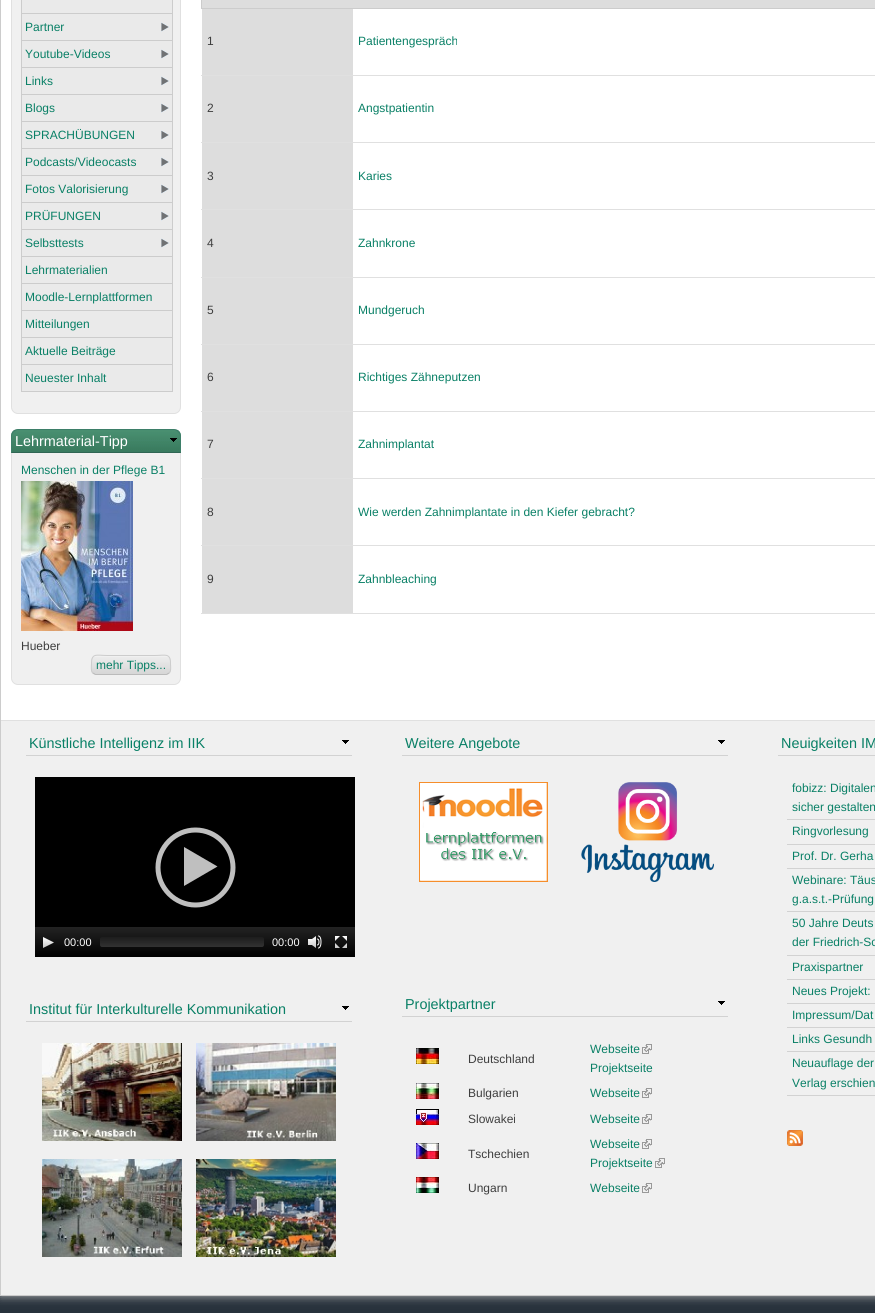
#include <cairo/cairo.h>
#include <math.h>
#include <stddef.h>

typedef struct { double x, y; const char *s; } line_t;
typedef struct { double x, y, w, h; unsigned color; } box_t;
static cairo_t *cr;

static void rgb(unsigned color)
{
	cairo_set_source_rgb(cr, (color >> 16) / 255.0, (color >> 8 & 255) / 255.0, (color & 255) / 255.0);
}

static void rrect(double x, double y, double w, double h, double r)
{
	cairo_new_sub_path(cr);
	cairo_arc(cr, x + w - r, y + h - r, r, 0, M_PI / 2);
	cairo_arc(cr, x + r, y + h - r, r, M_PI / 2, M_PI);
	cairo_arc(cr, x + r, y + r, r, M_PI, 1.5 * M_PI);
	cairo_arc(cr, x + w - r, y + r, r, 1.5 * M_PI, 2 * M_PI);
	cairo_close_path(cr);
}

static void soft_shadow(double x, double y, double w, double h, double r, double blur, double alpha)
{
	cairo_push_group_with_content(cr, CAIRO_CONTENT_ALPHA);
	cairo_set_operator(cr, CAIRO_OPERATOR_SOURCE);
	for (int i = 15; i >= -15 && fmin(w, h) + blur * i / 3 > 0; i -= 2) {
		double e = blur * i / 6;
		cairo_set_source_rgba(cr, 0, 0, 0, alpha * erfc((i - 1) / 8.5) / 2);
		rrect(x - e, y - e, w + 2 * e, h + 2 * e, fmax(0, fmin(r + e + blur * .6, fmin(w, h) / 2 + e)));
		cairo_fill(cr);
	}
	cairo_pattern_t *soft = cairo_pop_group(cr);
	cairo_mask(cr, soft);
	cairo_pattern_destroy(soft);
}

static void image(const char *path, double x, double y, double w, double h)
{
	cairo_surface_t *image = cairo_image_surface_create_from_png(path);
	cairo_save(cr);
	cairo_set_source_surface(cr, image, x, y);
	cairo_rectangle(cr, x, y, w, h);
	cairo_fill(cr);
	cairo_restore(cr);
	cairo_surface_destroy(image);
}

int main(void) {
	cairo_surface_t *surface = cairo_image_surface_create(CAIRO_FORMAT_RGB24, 875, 1313);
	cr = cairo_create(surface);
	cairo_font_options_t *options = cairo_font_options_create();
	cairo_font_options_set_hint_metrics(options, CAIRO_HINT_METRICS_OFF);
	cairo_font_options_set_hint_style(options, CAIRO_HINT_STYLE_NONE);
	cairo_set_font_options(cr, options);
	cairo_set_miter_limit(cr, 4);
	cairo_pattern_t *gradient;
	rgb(0x28323c);
	cairo_paint(cr);
	rgb(0xbbbbbb);
	soft_shadow(0, -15, 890, 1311, 0, 5, 1);
	rgb(0xffffff);
	cairo_rectangle(cr, 1, 0, 874, 720);
	cairo_fill(cr);
	cairo_rectangle(cr, 0.5, -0.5, 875, 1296);
	rgb(0xcccccc);
	cairo_set_line_width(cr, 1);
	cairo_stroke(cr);
	rgb(0xf0f0f0);
	rrect(11.5, -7.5, 169, 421, 6.5);
	cairo_fill_preserve(cr);
	rgb(0xe0e0e0);
	cairo_stroke(cr);
	{
		static const box_t items[] = {
			{22, 0, 150, 13, 0xeaeaea},
			{172, 0, 1, 392, 0xcccccc},
			{21, 13, 152, 1, 0xcccccc},
			{21, 0, 1, 14, 0xcccccc},
			{22, 14, 150, 26, 0xeaeaea},
		};
		for (size_t i = 0; i < sizeof items / sizeof *items; i++) {
			rgb(items[i].color);
			cairo_rectangle(cr, items[i].x, items[i].y, items[i].w, items[i].h);
			cairo_fill(cr);
		}
	}
	image("img/1.png", 161, 22, 8, 10);
	{
		static const box_t items[] = {
			{21, 40, 152, 1, 0xcccccc},
			{21, 14, 1, 27, 0xcccccc},
			{22, 41, 150, 26, 0xeaeaea},
		};
		for (size_t i = 0; i < sizeof items / sizeof *items; i++) {
			rgb(items[i].color);
			cairo_rectangle(cr, items[i].x, items[i].y, items[i].w, items[i].h);
			cairo_fill(cr);
		}
	}
	image("img/1.png", 161, 49, 8, 10);
	{
		static const box_t items[] = {
			{21, 67, 152, 1, 0xcccccc},
			{21, 41, 1, 27, 0xcccccc},
			{22, 68, 150, 26, 0xeaeaea},
		};
		for (size_t i = 0; i < sizeof items / sizeof *items; i++) {
			rgb(items[i].color);
			cairo_rectangle(cr, items[i].x, items[i].y, items[i].w, items[i].h);
			cairo_fill(cr);
		}
	}
	image("img/1.png", 161, 76, 8, 10);
	{
		static const box_t items[] = {
			{21, 94, 152, 1, 0xcccccc},
			{21, 68, 1, 27, 0xcccccc},
			{22, 95, 150, 26, 0xeaeaea},
		};
		for (size_t i = 0; i < sizeof items / sizeof *items; i++) {
			rgb(items[i].color);
			cairo_rectangle(cr, items[i].x, items[i].y, items[i].w, items[i].h);
			cairo_fill(cr);
		}
	}
	image("img/1.png", 161, 103, 8, 10);
	{
		static const box_t items[] = {
			{21, 121, 152, 1, 0xcccccc},
			{21, 95, 1, 27, 0xcccccc},
			{22, 122, 150, 26, 0xeaeaea},
		};
		for (size_t i = 0; i < sizeof items / sizeof *items; i++) {
			rgb(items[i].color);
			cairo_rectangle(cr, items[i].x, items[i].y, items[i].w, items[i].h);
			cairo_fill(cr);
		}
	}
	image("img/1.png", 161, 130, 8, 10);
	{
		static const box_t items[] = {
			{21, 148, 152, 1, 0xcccccc},
			{21, 122, 1, 27, 0xcccccc},
			{22, 149, 150, 26, 0xeaeaea},
		};
		for (size_t i = 0; i < sizeof items / sizeof *items; i++) {
			rgb(items[i].color);
			cairo_rectangle(cr, items[i].x, items[i].y, items[i].w, items[i].h);
			cairo_fill(cr);
		}
	}
	image("img/1.png", 161, 157, 8, 10);
	{
		static const box_t items[] = {
			{21, 175, 152, 1, 0xcccccc},
			{21, 149, 1, 27, 0xcccccc},
			{22, 176, 150, 26, 0xeaeaea},
		};
		for (size_t i = 0; i < sizeof items / sizeof *items; i++) {
			rgb(items[i].color);
			cairo_rectangle(cr, items[i].x, items[i].y, items[i].w, items[i].h);
			cairo_fill(cr);
		}
	}
	image("img/1.png", 161, 184, 8, 10);
	{
		static const box_t items[] = {
			{21, 202, 152, 1, 0xcccccc},
			{21, 176, 1, 27, 0xcccccc},
			{22, 203, 150, 26, 0xeaeaea},
		};
		for (size_t i = 0; i < sizeof items / sizeof *items; i++) {
			rgb(items[i].color);
			cairo_rectangle(cr, items[i].x, items[i].y, items[i].w, items[i].h);
			cairo_fill(cr);
		}
	}
	image("img/1.png", 161, 211, 8, 10);
	{
		static const box_t items[] = {
			{21, 229, 152, 1, 0xcccccc},
			{21, 203, 1, 27, 0xcccccc},
			{22, 230, 150, 26, 0xeaeaea},
		};
		for (size_t i = 0; i < sizeof items / sizeof *items; i++) {
			rgb(items[i].color);
			cairo_rectangle(cr, items[i].x, items[i].y, items[i].w, items[i].h);
			cairo_fill(cr);
		}
	}
	image("img/1.png", 161, 238, 8, 10);
	{
		static const box_t items[] = {
			{21, 256, 152, 1, 0xcccccc},
			{21, 230, 1, 27, 0xcccccc},
			{22, 257, 150, 26, 0xeaeaea},
			{21, 283, 152, 1, 0xcccccc},
			{21, 257, 1, 27, 0xcccccc},
			{22, 284, 150, 26, 0xeaeaea},
			{21, 310, 152, 1, 0xcccccc},
			{21, 284, 1, 27, 0xcccccc},
			{22, 311, 150, 26, 0xeaeaea},
			{21, 337, 152, 1, 0xcccccc},
			{21, 311, 1, 27, 0xcccccc},
			{22, 338, 150, 26, 0xeaeaea},
			{21, 364, 152, 1, 0xcccccc},
			{21, 338, 1, 27, 0xcccccc},
			{22, 365, 150, 26, 0xeaeaea},
			{21, 391, 152, 1, 0xcccccc},
			{21, 365, 1, 27, 0xcccccc},
		};
		for (size_t i = 0; i < sizeof items / sizeof *items; i++) {
			rgb(items[i].color);
			cairo_rectangle(cr, items[i].x, items[i].y, items[i].w, items[i].h);
			cairo_fill(cr);
		}
	}
	rgb(0xf0f0f0);
	rrect(11.5, 429.5, 169, 255, 6.5);
	cairo_fill_preserve(cr);
	rgb(0xe0e0e0);
	cairo_stroke(cr);
	image("img/2.png", 11, 430, 170, 23);
	rgb(0x3d7f69);
	cairo_new_path(cr);
	cairo_move_to(cr, 18, 429);
	cairo_curve_to(cr, 16, 429, 14, 430, 13, 431);
	cairo_line_to(cr, 14, 432);
	cairo_line_to(cr, 17, 430);
	cairo_line_to(cr, 175, 430);
	cairo_line_to(cr, 178, 432);
	cairo_line_to(cr, 179, 431);
	cairo_curve_to(cr, 178, 430, 176, 429, 174, 429);
	cairo_close_path(cr);
	cairo_fill(cr);
	cairo_new_path(cr);
	cairo_move_to(cr, 181, 453);
	cairo_line_to(cr, 181, 436);
	cairo_curve_to(cr, 181, 434, 180, 432, 179, 431);
	cairo_line_to(cr, 178, 432);
	cairo_curve_to(cr, 179, 433, 180, 434.5, 180, 436);
	cairo_line_to(cr, 180, 452);
	cairo_close_path(cr);
	cairo_fill(cr);
	rgb(0x306654);
	cairo_new_path(cr);
	cairo_move_to(cr, 181, 453);
	cairo_line_to(cr, 180, 452);
	cairo_line_to(cr, 12, 452);
	cairo_line_to(cr, 11, 453);
	cairo_close_path(cr);
	cairo_fill(cr);
	rgb(0x3d7f69);
	cairo_new_path(cr);
	cairo_move_to(cr, 11, 453);
	cairo_line_to(cr, 12, 452);
	cairo_line_to(cr, 12, 436);
	cairo_curve_to(cr, 12, 434.5, 13, 433, 14, 432);
	cairo_line_to(cr, 13, 431);
	cairo_curve_to(cr, 12, 432, 11, 434, 11, 436);
	cairo_close_path(cr);
	cairo_fill(cr);
	image("img/3.png", 170, 438, 7, 4);
	image("img/4.png", 21, 481, 112, 150);
	image("img/5.png", 91, 657, 80, 18);
	cairo_new_path(cr);
	cairo_move_to(cr, 169, 673);
	cairo_line_to(cr, 166.5, 674.5);
	cairo_line_to(cr, 95.5, 674.5);
	cairo_line_to(cr, 93, 673);
	rgb(0xbbbbbb);
	cairo_stroke(cr);
	cairo_new_path(cr);
	cairo_move_to(cr, 93, 673);
	cairo_curve_to(cr, 90.5, 671, 91.5, 666.5, 91.5, 663.5);
	cairo_curve_to(cr, 91.5, 652.5, 97, 655.5, 107.5, 655.5);
	cairo_line_to(cr, 154.5, 655.5);
	cairo_curve_to(cr, 165, 655.5, 170.5, 652.5, 170.5, 663.5);
	cairo_curve_to(cr, 170.5, 666.5, 171.5, 671, 169, 673);
	rgb(0xcccccc);
	cairo_stroke(cr);
	{
		static const box_t items[] = {
			{202, 0, 673, 8, 0xdddddd},
			{201, 8, 674, 1, 0xcccccc},
			{201, 0, 1, 9, 0xcccccc},
			{201, 75, 674, 1, 0xe0e0e0},
			{202, 9, 151, 66, 0xdddddd},
			{201, 142, 674, 1, 0xe0e0e0},
			{202, 76, 151, 66, 0xdddddd},
			{201, 209, 674, 1, 0xe0e0e0},
			{202, 143, 151, 66, 0xdddddd},
			{201, 277, 674, 1, 0xe0e0e0},
			{202, 210, 151, 67, 0xdddddd},
			{201, 344, 674, 1, 0xe0e0e0},
			{202, 278, 151, 66, 0xdddddd},
			{201, 411, 674, 1, 0xe0e0e0},
			{202, 345, 151, 66, 0xdddddd},
			{201, 478, 674, 1, 0xe0e0e0},
			{202, 412, 151, 66, 0xdddddd},
			{201, 545, 674, 1, 0xe0e0e0},
			{202, 479, 151, 66, 0xdddddd},
			{201, 613, 674, 1, 0xe0e0e0},
			{202, 546, 151, 67, 0xdddddd},
			{1, 721, 874, 574, 0xf0f0f0},
			{1, 720, 874, 1, 0xe0e0e0},
			{26, 755, 326, 1, 0xd2d2d2},
		};
		for (size_t i = 0; i < sizeof items / sizeof *items; i++) {
			rgb(items[i].color);
			cairo_rectangle(cr, items[i].x, items[i].y, items[i].w, items[i].h);
			cairo_fill(cr);
		}
	}
	image("img/6.png", 342, 740, 7, 4);
	rgb(0x000000);
	cairo_rectangle(cr, 35, 777, 320, 150);
	cairo_fill(cr);
	rgb(0xbfbfbf);
	cairo_new_path(cr);
	cairo_move_to(cr, 217.5, 866.5);
	cairo_line_to(cr, 184, 886);
	cairo_line_to(cr, 184, 847);
	cairo_close_path(cr);
	cairo_fill(cr);
	cairo_new_path(cr);
	cairo_move_to(cr, 158, 867.5);
	cairo_curve_to(cr, 158, 847, 175, 830, 195.5, 830);
	cairo_curve_to(cr, 216, 830, 233, 847, 233, 867.5);
	cairo_curve_to(cr, 233, 888, 216, 905, 195.5, 905);
	cairo_curve_to(cr, 175, 905, 158, 888, 158, 867.5);
	cairo_close_path(cr);
	cairo_set_line_width(cr, 5);
	cairo_stroke(cr);
	gradient = cairo_pattern_create_linear(195, 927, 195, 957);
	cairo_pattern_add_color_stop_rgba(gradient, 0, 0.137, 0.137, 0.137, 1);
	cairo_pattern_add_color_stop_rgba(gradient, 1, 0, 0, 0, 1);
	cairo_set_source(cr, gradient);
	cairo_pattern_destroy(gradient);
	cairo_rectangle(cr, 35, 927, 320, 30);
	cairo_fill(cr);
	image("img/7.png", 43, 937, 11, 11);
	gradient = cairo_pattern_create_linear(182, 937, 182, 947);
	cairo_pattern_add_color_stop_rgba(gradient, 0, 0.118, 0.118, 0.118, 0.8);
	cairo_pattern_add_color_stop_rgba(gradient, 1, 0.235, 0.235, 0.235, 0.8);
	cairo_set_source(cr, gradient);
	cairo_pattern_destroy(gradient);
	rrect(100, 937, 164, 10, 2);
	cairo_fill(cr);
	image("img/8.png", 308, 935, 14, 14);
	image("img/9.png", 335, 936, 12, 12);
	rgb(0xd2d2d2);
	cairo_rectangle(cr, 26, 1021, 326, 1);
	cairo_fill(cr);
	image("img/6.png", 342, 1006, 7, 4);
	image("img/10.png", 42, 1043, 140, 98);
	image("img/11.png", 196, 1043, 140, 98);
	image("img/12.png", 42, 1159, 140, 98);
	image("img/13.png", 196, 1159, 140, 98);
	cairo_rectangle(cr, 402, 755, 326, 1);
	cairo_fill(cr);
	image("img/6.png", 718, 740, 7, 4);
	image("img/14.png", 419, 782, 129, 100);
	image("img/15.png", 581, 782, 133, 100);
	cairo_rectangle(cr, 402, 1016, 326, 1);
	cairo_fill(cr);
	image("img/6.png", 718, 1001, 7, 4);
	image("img/16.png", 416, 1048, 23, 16);
	image("img/17.png", 642, 1044, 10, 10);
	image("img/18.png", 416, 1083, 23, 16);
	image("img/17.png", 642, 1088, 10, 10);
	image("img/19.png", 416, 1109, 23, 16);
	image("img/17.png", 642, 1114, 10, 10);
	image("img/20.png", 416, 1143, 23, 16);
	image("img/17.png", 642, 1139, 10, 10);
	image("img/17.png", 655, 1158, 10, 10);
	image("img/21.png", 416, 1177, 23, 16);
	image("img/17.png", 642, 1183, 10, 10);
	{
		static const box_t items[] = {
			{778, 755, 97, 1, 0xd2d2d2},
			{787, 819, 88, 1, 0xd2d2d2},
			{787, 844, 88, 1, 0xd2d2d2},
			{787, 868, 88, 1, 0xd2d2d2},
			{787, 911, 88, 1, 0xd2d2d2},
			{787, 955, 88, 1, 0xd2d2d2},
			{787, 979, 88, 1, 0xd2d2d2},
			{787, 1003, 88, 1, 0xd2d2d2},
			{787, 1027, 88, 1, 0xd2d2d2},
			{787, 1051, 88, 1, 0xd2d2d2},
			{787, 1095, 88, 1, 0xd2d2d2},
		};
		for (size_t i = 0; i < sizeof items / sizeof *items; i++) {
			rgb(items[i].color);
			cairo_rectangle(cr, items[i].x, items[i].y, items[i].w, items[i].h);
			cairo_fill(cr);
		}
	}
	image("img/22.png", 787, 1130, 16, 16);
	cairo_select_font_face(cr, "Liberation Sans", CAIRO_FONT_SLANT_NORMAL, CAIRO_FONT_WEIGHT_NORMAL);
	cairo_set_font_size(cr, 12);
	rgb(0x098066);
	{
		static const line_t items[] = {
			{25, 31, "Partner"},
			{25, 58, "Youtube-Videos"},
			{25, 85, "Links"},
			{25, 112, "Blogs"},
			{25, 139, "SPRACHÜBUNGEN"},
			{25, 166, "Podcasts/Videocasts"},
			{25, 193, "Fotos Valorisierung"},
			{25, 220, "PRÜFUNGEN"},
			{25, 247, "Selbsttests"},
			{25, 274, "Lehrmaterialien"},
			{25, 301, "Moodle-Lernplattformen"},
			{25, 328, "Mitteilungen"},
			{25, 355, "Aktuelle Beiträge"},
			{25, 382, "Neuester Inhalt"},
		};
		for (size_t i = 0; i < sizeof items / sizeof *items; i++) {
			cairo_move_to(cr, items[i].x, items[i].y);
			cairo_show_text(cr, items[i].s);
		}
	}
	cairo_set_font_size(cr, 14.4);
	rgb(0xffffff);
	cairo_move_to(cr, 15, 446);
	cairo_show_text(cr, "Lehrmaterial-Tipp");
	cairo_set_font_size(cr, 12);
	rgb(0x098066);
	cairo_move_to(cr, 21, 474);
	cairo_show_text(cr, "Menschen in der Pflege B1");
	rgb(0x3e3e3e);
	cairo_move_to(cr, 21, 650);
	cairo_show_text(cr, "Hueber");
	rgb(0x098066);
	cairo_move_to(cr, 96, 669);
	cairo_show_text(cr, "mehr Tipps...");
	rgb(0x3e3e3e);
	cairo_move_to(cr, 207, 45);
	cairo_show_text(cr, "1");
	rgb(0x098066);
	cairo_move_to(cr, 358, 45);
	cairo_show_text(cr, "Patientengespräch");
	rgb(0x3e3e3e);
	cairo_move_to(cr, 207, 112);
	cairo_show_text(cr, "2");
	rgb(0x098066);
	cairo_move_to(cr, 358, 112);
	cairo_show_text(cr, "Angstpatientin");
	rgb(0x3e3e3e);
	cairo_move_to(cr, 207, 180);
	cairo_show_text(cr, "3");
	rgb(0x098066);
	cairo_move_to(cr, 358, 180);
	cairo_show_text(cr, "Karies");
	rgb(0x3e3e3e);
	cairo_move_to(cr, 207, 247);
	cairo_show_text(cr, "4");
	rgb(0x098066);
	cairo_move_to(cr, 358, 247);
	cairo_show_text(cr, "Zahnkrone");
	rgb(0x3e3e3e);
	cairo_move_to(cr, 207, 314);
	cairo_show_text(cr, "5");
	rgb(0x098066);
	cairo_move_to(cr, 358, 314);
	cairo_show_text(cr, "Mundgeruch");
	rgb(0x3e3e3e);
	cairo_move_to(cr, 207, 381);
	cairo_show_text(cr, "6");
	rgb(0x098066);
	cairo_move_to(cr, 358, 381);
	cairo_show_text(cr, "Richtiges Zähneputzen");
	rgb(0x3e3e3e);
	cairo_move_to(cr, 207, 448);
	cairo_show_text(cr, "7");
	rgb(0x098066);
	cairo_move_to(cr, 358, 448);
	cairo_show_text(cr, "Zahnimplantat");
	rgb(0x3e3e3e);
	cairo_move_to(cr, 207, 516);
	cairo_show_text(cr, "8");
	rgb(0x098066);
	cairo_move_to(cr, 358, 516);
	cairo_show_text(cr, "Wie werden Zahnimplantate in den Kiefer gebracht?");
	rgb(0x3e3e3e);
	cairo_move_to(cr, 207, 583);
	cairo_show_text(cr, "9");
	rgb(0x098066);
	cairo_move_to(cr, 358, 583);
	cairo_show_text(cr, "Zahnbleaching");
	cairo_set_font_size(cr, 14.4);
	cairo_move_to(cr, 29, 748);
	cairo_show_text(cr, "Künstliche Intelligenz im IIK");
	cairo_set_font_size(cr, 11);
	rgb(0xffffff);
	cairo_move_to(cr, 64, 946);
	cairo_show_text(cr, "00:00");
	cairo_move_to(cr, 272, 946);
	cairo_show_text(cr, "00:00");
	cairo_set_font_size(cr, 14.4);
	rgb(0x098066);
	{
		static const line_t items[] = {
			{29, 1014, "Institut für Interkulturelle Kommunikation"},
			{405, 748, "Weitere Angebote"},
			{405, 1009, "Projektpartner"},
		};
		for (size_t i = 0; i < sizeof items / sizeof *items; i++) {
			cairo_move_to(cr, items[i].x, items[i].y);
			cairo_show_text(cr, items[i].s);
		}
	}
	cairo_set_font_size(cr, 12);
	rgb(0x3e3e3e);
	cairo_move_to(cr, 468, 1063);
	cairo_show_text(cr, "Deutschland");
	rgb(0x098066);
	cairo_move_to(cr, 590, 1053);
	cairo_show_text(cr, "Webseite");
	cairo_move_to(cr, 590, 1072);
	cairo_show_text(cr, "Projektseite");
	rgb(0x3e3e3e);
	cairo_move_to(cr, 468, 1097);
	cairo_show_text(cr, "Bulgarien");
	rgb(0x098066);
	cairo_move_to(cr, 590, 1097);
	cairo_show_text(cr, "Webseite");
	rgb(0x3e3e3e);
	cairo_move_to(cr, 468, 1123);
	cairo_show_text(cr, "Slowakei");
	rgb(0x098066);
	cairo_move_to(cr, 590, 1123);
	cairo_show_text(cr, "Webseite");
	rgb(0x3e3e3e);
	cairo_move_to(cr, 468, 1158);
	cairo_show_text(cr, "Tschechien");
	rgb(0x098066);
	cairo_move_to(cr, 590, 1148);
	cairo_show_text(cr, "Webseite");
	cairo_move_to(cr, 590, 1167);
	cairo_show_text(cr, "Projektseite");
	rgb(0x3e3e3e);
	cairo_move_to(cr, 468, 1192);
	cairo_show_text(cr, "Ungarn");
	rgb(0x098066);
	cairo_move_to(cr, 590, 1192);
	cairo_show_text(cr, "Webseite");
	cairo_set_font_size(cr, 14.4);
	cairo_move_to(cr, 781, 748);
	cairo_show_text(cr, "Neuigkeiten IM");
	cairo_set_font_size(cr, 12);
	{
		static const line_t items[] = {
			{792, 792, "fobizz: Digitalen"},
			{792, 811, "sicher gestalten"},
			{792, 835, "Ringvorlesung"},
			{792, 860, "Prof. Dr. Gerha"},
			{792, 884, "Webinare: Täus"},
			{792, 903, "g.a.s.t.-Prüfung"},
			{792, 927, "50 Jahre Deuts"},
			{792, 946, "der Friedrich-Sc"},
			{792, 971, "Praxispartner"},
			{792, 995, "Neues Projekt:"},
			{792, 1019, "Impressum/Dat"},
			{792, 1043, "Links Gesundh"},
			{792, 1067, "Neuauflage der"},
			{792, 1087, "Verlag erschien"},
		};
		for (size_t i = 0; i < sizeof items / sizeof *items; i++) {
			cairo_move_to(cr, items[i].x, items[i].y);
			cairo_show_text(cr, items[i].s);
		}
	}
	cairo_surface_write_to_png(surface, "page.png");
	cairo_font_options_destroy(options);
	cairo_destroy(cr);
	cairo_surface_destroy(surface);
	return 0;
}
